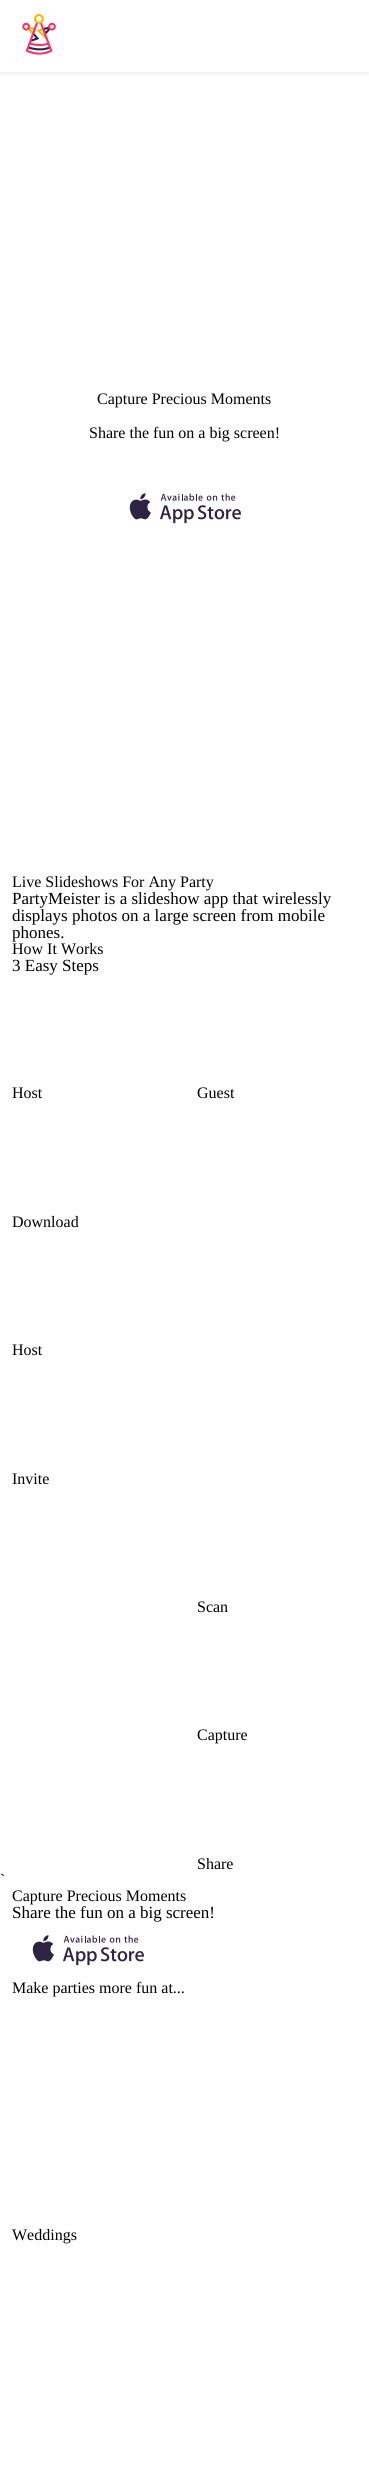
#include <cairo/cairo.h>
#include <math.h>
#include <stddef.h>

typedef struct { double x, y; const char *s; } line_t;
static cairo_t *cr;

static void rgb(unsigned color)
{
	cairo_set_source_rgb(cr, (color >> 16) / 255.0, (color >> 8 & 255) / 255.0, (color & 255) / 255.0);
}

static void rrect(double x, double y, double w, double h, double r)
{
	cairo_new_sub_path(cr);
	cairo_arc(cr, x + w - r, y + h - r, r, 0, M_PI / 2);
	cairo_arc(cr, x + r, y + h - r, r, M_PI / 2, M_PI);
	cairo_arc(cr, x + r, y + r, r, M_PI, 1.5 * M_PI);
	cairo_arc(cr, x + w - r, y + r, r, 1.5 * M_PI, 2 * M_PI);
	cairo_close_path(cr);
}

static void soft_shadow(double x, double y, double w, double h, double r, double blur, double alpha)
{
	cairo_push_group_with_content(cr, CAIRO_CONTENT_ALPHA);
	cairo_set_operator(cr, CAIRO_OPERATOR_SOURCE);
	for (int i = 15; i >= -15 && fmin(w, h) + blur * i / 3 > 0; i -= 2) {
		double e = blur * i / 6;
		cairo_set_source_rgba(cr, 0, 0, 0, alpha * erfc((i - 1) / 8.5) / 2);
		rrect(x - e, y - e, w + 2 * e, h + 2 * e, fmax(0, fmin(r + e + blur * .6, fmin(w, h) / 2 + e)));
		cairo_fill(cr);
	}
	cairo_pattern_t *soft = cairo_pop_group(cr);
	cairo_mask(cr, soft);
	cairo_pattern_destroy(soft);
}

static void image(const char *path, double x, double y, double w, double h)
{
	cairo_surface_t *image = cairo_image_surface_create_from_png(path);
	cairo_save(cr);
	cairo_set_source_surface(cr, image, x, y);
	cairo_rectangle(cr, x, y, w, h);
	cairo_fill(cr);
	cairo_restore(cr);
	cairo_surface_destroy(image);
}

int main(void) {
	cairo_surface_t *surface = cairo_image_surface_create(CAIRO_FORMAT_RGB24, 369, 2482);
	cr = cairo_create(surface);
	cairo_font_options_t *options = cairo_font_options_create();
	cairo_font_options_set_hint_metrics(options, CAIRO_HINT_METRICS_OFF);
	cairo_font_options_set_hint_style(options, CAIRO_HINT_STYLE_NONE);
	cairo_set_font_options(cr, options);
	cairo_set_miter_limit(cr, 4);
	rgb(0xffffff);
	cairo_paint(cr);
	cairo_save(cr);
	cairo_rectangle(cr, 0, 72, 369, 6);
	cairo_clip(cr);
	rgb(0xeeeeee);
	soft_shadow(0, 2, 369, 72, 0, 2, 1);
	cairo_restore(cr);
	image("img/1.png", 22, 14, 166, 41);
	image("img/2.png", 129, 493, 112, 31);
	image("img/2.png", 32, 1935, 112, 31);
	cairo_select_font_face(cr, "Liberation Serif", CAIRO_FONT_SLANT_NORMAL, CAIRO_FONT_WEIGHT_NORMAL);
	cairo_set_font_size(cr, 16);
	rgb(0x000000);
	{
		static const line_t items[] = {
			{97, 404, "Capture Precious Moments"},
			{89, 438, "Share the fun on a big screen!"},
			{12, 887, "Live Slideshows For Any Party"},
		};
		for (size_t i = 0; i < sizeof items / sizeof *items; i++) {
			cairo_move_to(cr, items[i].x, items[i].y);
			cairo_show_text(cr, items[i].s);
		}
	}
	cairo_set_font_size(cr, 17);
	{
		static const line_t items[] = {
			{12, 904, "PartyMeister is a slideshow app that wirelessly"},
			{12, 921, "displays photos on a large screen from mobile"},
			{12, 938, "phones."},
		};
		for (size_t i = 0; i < sizeof items / sizeof *items; i++) {
			cairo_move_to(cr, items[i].x, items[i].y);
			cairo_show_text(cr, items[i].s);
		}
	}
	cairo_set_font_size(cr, 16);
	cairo_move_to(cr, 12, 954);
	cairo_show_text(cr, "How It Works");
	cairo_set_font_size(cr, 17);
	cairo_move_to(cr, 12, 971);
	cairo_show_text(cr, "3 Easy Steps");
	cairo_set_font_size(cr, 16);
	{
		static const line_t items[] = {
			{12, 1098, "Host"},
			{197, 1098, "Guest"},
			{12, 1227, "Download"},
			{12, 1355, "Host"},
			{12, 1484, "Invite"},
			{197, 1612, "Scan"},
			{197, 1740, "Capture"},
			{197, 1869, "Share"},
			{0, 1885, "`"},
			{12, 1901, "Capture Precious Moments"},
		};
		for (size_t i = 0; i < sizeof items / sizeof *items; i++) {
			cairo_move_to(cr, items[i].x, items[i].y);
			cairo_show_text(cr, items[i].s);
		}
	}
	cairo_set_font_size(cr, 17);
	cairo_move_to(cr, 12, 1918);
	cairo_show_text(cr, "Share the fun on a big screen!");
	cairo_set_font_size(cr, 16);
	cairo_move_to(cr, 12, 1993);
	cairo_show_text(cr, "Make parties more fun at...");
	cairo_move_to(cr, 12, 2240);
	cairo_show_text(cr, "Weddings");
	cairo_surface_write_to_png(surface, "page.png");
	cairo_font_options_destroy(options);
	cairo_destroy(cr);
	cairo_surface_destroy(surface);
	return 0;
}
